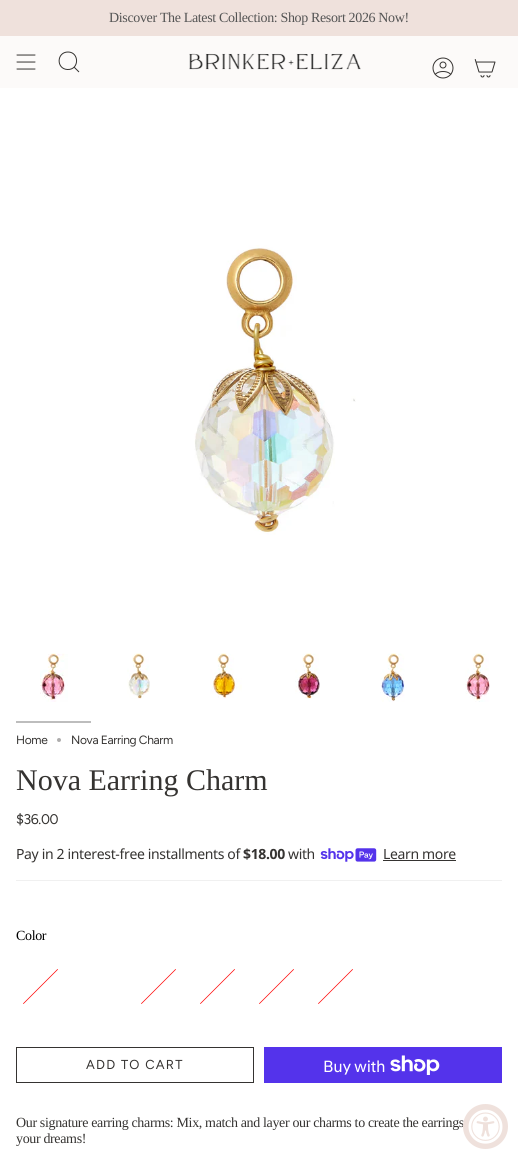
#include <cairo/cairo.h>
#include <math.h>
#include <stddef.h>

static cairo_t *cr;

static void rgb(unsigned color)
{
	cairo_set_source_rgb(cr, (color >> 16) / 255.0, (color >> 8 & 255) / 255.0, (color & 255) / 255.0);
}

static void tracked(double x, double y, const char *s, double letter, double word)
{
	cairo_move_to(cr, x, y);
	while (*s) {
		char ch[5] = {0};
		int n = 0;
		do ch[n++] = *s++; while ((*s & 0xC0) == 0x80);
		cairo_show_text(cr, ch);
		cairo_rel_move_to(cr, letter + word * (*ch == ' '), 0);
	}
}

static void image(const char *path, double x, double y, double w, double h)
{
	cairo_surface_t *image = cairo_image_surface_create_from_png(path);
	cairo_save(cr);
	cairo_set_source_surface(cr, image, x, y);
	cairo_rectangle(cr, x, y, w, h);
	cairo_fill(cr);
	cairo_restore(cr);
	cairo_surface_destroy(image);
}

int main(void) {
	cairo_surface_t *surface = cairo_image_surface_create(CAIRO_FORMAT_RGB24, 518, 1159);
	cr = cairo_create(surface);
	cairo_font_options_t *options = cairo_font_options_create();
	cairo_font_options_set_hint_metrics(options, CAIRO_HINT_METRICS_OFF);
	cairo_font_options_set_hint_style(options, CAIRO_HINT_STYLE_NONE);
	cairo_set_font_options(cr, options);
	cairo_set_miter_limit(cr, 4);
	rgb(0xffffff);
	cairo_paint(cr);
	rgb(0xefe1dc);
	cairo_rectangle(cr, 0, 0, 518, 36);
	cairo_fill(cr);
	rgb(0xfcfaf9);
	cairo_rectangle(cr, 0, 36, 518, 52);
	cairo_fill(cr);
	cairo_new_path(cr);
	cairo_move_to(cr, 17, 55);
	cairo_line_to(cr, 35, 55);
	cairo_move_to(cr, 17, 62);
	cairo_line_to(cr, 35, 62);
	cairo_move_to(cr, 17, 69);
	cairo_line_to(cr, 35, 69);
	rgb(0x353331);
	cairo_set_line_width(cr, 1);
	cairo_set_line_cap(cr, CAIRO_LINE_CAP_ROUND);
	cairo_set_line_join(cr, CAIRO_LINE_JOIN_ROUND);
	cairo_stroke(cr);
	cairo_new_path(cr);
	cairo_move_to(cr, 68, 52);
	cairo_curve_to(cr, 79.5, 52, 79.5, 70, 67.5, 69.5);
	cairo_curve_to(cr, 56, 69, 56.5, 52, 68, 52);
	cairo_close_path(cr);
	cairo_move_to(cr, 74, 67);
	cairo_line_to(cr, 79, 72);
	cairo_set_line_cap(cr, CAIRO_LINE_CAP_BUTT);
	cairo_set_line_join(cr, CAIRO_LINE_JOIN_MITER);
	cairo_stroke(cr);
	image("img/1.png", 189, 53, 172, 17);
	image("img/2.png", 432, 57, 22, 22);
	image("img/3.png", 474, 59, 22, 19);
	image("img/4.png", 194, 245, 162, 290);
	image("img/5.png", 40, 653, 28, 49);
	rgb(0xbdbdbd);
	cairo_rectangle(cr, 16, 721, 75, 2);
	cairo_fill(cr);
	image("img/6.png", 127, 653, 23, 46);
	image("img/7.png", 210, 653, 32, 46);
	image("img/8.png", 295, 653, 25, 46);
	image("img/9.png", 380, 653, 25, 49);
	image("img/10.png", 465, 653, 25, 49);
	rgb(0xaeadad);
	cairo_arc(cr, 59, 740, 2, 0, 2 * M_PI);
	cairo_fill(cr);
	image("img/11.png", 320, 848, 57, 14);
	rgb(0x353331);
	cairo_rectangle(cr, 383, 860, 73, 1);
	cairo_fill(cr);
	rgb(0xf0f0f0);
	cairo_rectangle(cr, 16, 880, 486, 1);
	cairo_fill(cr);
	rgb(0xff0000);
	cairo_new_path(cr);
	cairo_move_to(cr, 57.5, 969);
	cairo_line_to(cr, 58, 969.5);
	cairo_line_to(cr, 23.5, 1004);
	cairo_line_to(cr, 23, 1003.5);
	cairo_close_path(cr);
	cairo_fill(cr);
	cairo_new_path(cr);
	cairo_move_to(cr, 175.5, 969);
	cairo_line_to(cr, 176, 969.5);
	cairo_line_to(cr, 141.5, 1004);
	cairo_line_to(cr, 141, 1003.5);
	cairo_close_path(cr);
	cairo_fill(cr);
	cairo_new_path(cr);
	cairo_move_to(cr, 234.5, 969);
	cairo_line_to(cr, 235, 969.5);
	cairo_line_to(cr, 200.5, 1004);
	cairo_line_to(cr, 200, 1003.5);
	cairo_close_path(cr);
	cairo_fill(cr);
	cairo_new_path(cr);
	cairo_move_to(cr, 293.5, 969);
	cairo_line_to(cr, 294, 969.5);
	cairo_line_to(cr, 259.5, 1004);
	cairo_line_to(cr, 259, 1003.5);
	cairo_close_path(cr);
	cairo_fill(cr);
	cairo_new_path(cr);
	cairo_move_to(cr, 352.5, 969);
	cairo_line_to(cr, 353, 969.5);
	cairo_line_to(cr, 318.5, 1004);
	cairo_line_to(cr, 318, 1003.5);
	cairo_close_path(cr);
	cairo_fill(cr);
	cairo_rectangle(cr, 16.5, 1047.5, 237, 35);
	rgb(0x353331);
	cairo_stroke(cr);
	rgb(0x5433eb);
	cairo_rectangle(cr, 264, 1047, 238, 36);
	cairo_fill(cr);
	image("img/12.png", 390, 1055, 50, 20);
	cairo_select_font_face(cr, "Liberation Serif", CAIRO_FONT_SLANT_NORMAL, CAIRO_FONT_WEIGHT_NORMAL);
	cairo_set_font_size(cr, 14);
	rgb(0x545454);
	tracked(109, 22, "Discover The Latest Collection: Shop Resort 2026 Now!", -0.35, 0);
	cairo_select_font_face(cr, "Figtree", CAIRO_FONT_SLANT_NORMAL, CAIRO_FONT_WEIGHT_NORMAL);
	cairo_set_font_size(cr, 12);
	rgb(0x353331);
	tracked(16, 744, "Home", -0.35, 0);
	tracked(71, 744, "Nova Earring Charm", -0.35, 0);
	cairo_select_font_face(cr, "Liberation Serif", CAIRO_FONT_SLANT_NORMAL, CAIRO_FONT_WEIGHT_NORMAL);
	cairo_set_font_size(cr, 30);
	cairo_move_to(cr, 16, 790);
	cairo_show_text(cr, "Nova Earring Charm");
	cairo_select_font_face(cr, "Figtree", CAIRO_FONT_SLANT_NORMAL, CAIRO_FONT_WEIGHT_NORMAL);
	cairo_set_font_size(cr, 14);
	tracked(16, 824, "$36.00", -0.35, 0);
	cairo_select_font_face(cr, "Noto Sans", CAIRO_FONT_SLANT_NORMAL, CAIRO_FONT_WEIGHT_NORMAL);
	tracked(16, 859, "Pay in 2 interest-free installments of", -0.35, 0);
	cairo_select_font_face(cr, "Noto Sans", CAIRO_FONT_SLANT_NORMAL, CAIRO_FONT_WEIGHT_BOLD);
	tracked(243, 859, "$18.00", -0.35, 0);
	cairo_select_font_face(cr, "Noto Sans", CAIRO_FONT_SLANT_NORMAL, CAIRO_FONT_WEIGHT_NORMAL);
	tracked(288, 859, "with", -0.35, 0);
	tracked(383, 859, "Learn more", -0.35, 0);
	cairo_select_font_face(cr, "Liberation Serif", CAIRO_FONT_SLANT_NORMAL, CAIRO_FONT_WEIGHT_NORMAL);
	rgb(0x000000);
	tracked(16, 940, "Color", -0.35, 0);
	cairo_select_font_face(cr, "Figtree", CAIRO_FONT_SLANT_NORMAL, CAIRO_FONT_WEIGHT_NORMAL);
	cairo_set_font_size(cr, 13);
	rgb(0x353331);
	tracked(86, 1069, "ADD TO CART", 1.25, 0);
	cairo_select_font_face(cr, "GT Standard", CAIRO_FONT_SLANT_NORMAL, CAIRO_FONT_WEIGHT_NORMAL);
	cairo_set_font_size(cr, 16);
	rgb(0xffffff);
	tracked(323, 1072, "Buy with", -0.35, 0);
	cairo_select_font_face(cr, "Liberation Serif", CAIRO_FONT_SLANT_NORMAL, CAIRO_FONT_WEIGHT_NORMAL);
	cairo_set_font_size(cr, 14);
	rgb(0x353331);
	tracked(16, 1127, "Our signature earring charms: Mix, match and layer our charms to create the earrings", -0.35, 0);
	tracked(16, 1143, "your dreams!", -0.35, 0);
	rgb(0xefe1dc);
	cairo_new_path(cr);
	cairo_arc(cr, 485.5, 1126.5, 22.5, 0, 2 * M_PI);
	cairo_fill(cr);
	image("img/13.png", 468, 1109, 35, 35);
	cairo_surface_write_to_png(surface, "page.png");
	cairo_font_options_destroy(options);
	cairo_destroy(cr);
	cairo_surface_destroy(surface);
	return 0;
}
